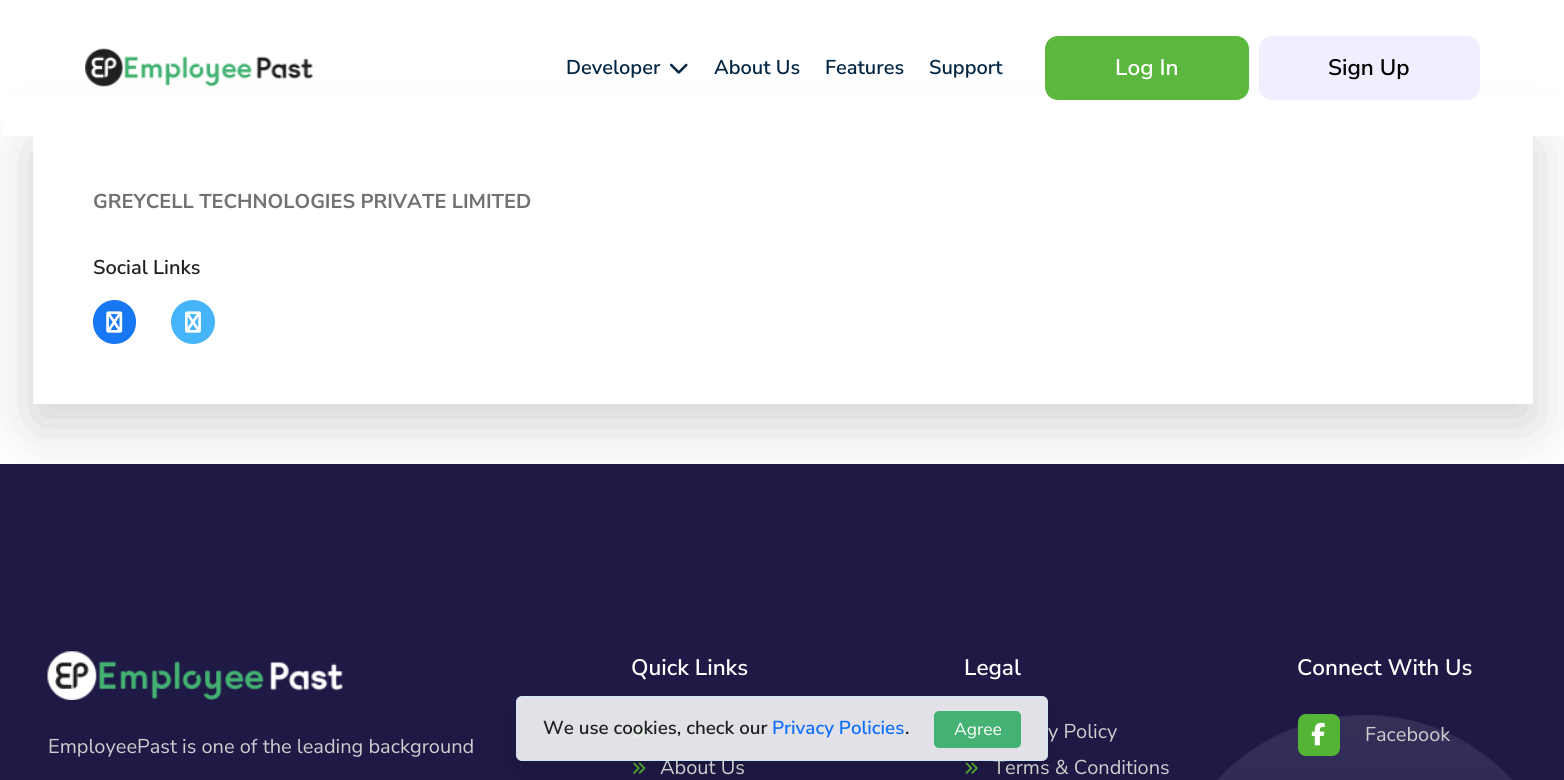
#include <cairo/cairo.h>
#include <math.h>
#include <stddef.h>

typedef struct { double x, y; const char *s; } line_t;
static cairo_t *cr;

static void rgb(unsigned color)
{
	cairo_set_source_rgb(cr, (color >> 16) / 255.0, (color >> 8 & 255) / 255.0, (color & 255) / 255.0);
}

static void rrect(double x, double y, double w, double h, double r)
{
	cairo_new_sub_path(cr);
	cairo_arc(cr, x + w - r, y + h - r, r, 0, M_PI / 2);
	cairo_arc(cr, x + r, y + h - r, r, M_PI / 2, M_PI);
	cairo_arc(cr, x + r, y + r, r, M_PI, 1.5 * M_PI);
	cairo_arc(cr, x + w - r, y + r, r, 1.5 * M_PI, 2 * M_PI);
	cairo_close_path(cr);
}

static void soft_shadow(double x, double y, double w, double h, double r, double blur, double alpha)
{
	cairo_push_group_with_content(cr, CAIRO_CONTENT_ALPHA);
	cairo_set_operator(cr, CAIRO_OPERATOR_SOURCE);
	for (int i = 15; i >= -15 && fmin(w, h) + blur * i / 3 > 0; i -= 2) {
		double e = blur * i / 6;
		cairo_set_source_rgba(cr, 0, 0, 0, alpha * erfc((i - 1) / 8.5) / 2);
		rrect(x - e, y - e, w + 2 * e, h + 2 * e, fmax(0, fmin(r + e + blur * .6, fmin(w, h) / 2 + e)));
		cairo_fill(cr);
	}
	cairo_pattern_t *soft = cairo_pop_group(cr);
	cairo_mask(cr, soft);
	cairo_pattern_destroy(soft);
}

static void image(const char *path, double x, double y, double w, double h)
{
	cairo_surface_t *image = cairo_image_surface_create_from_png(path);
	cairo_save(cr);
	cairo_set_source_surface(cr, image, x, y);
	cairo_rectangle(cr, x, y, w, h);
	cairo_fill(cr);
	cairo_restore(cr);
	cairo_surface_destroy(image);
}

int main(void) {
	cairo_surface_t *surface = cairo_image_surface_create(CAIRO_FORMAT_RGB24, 1564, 780);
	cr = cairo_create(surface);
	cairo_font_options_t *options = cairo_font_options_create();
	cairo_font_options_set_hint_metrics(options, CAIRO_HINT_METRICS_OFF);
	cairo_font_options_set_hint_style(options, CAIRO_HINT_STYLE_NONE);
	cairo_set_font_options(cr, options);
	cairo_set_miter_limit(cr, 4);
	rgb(0xffffff);
	cairo_paint(cr);
	cairo_save(cr);
	cairo_set_fill_rule(cr, CAIRO_FILL_RULE_EVEN_ODD);
	cairo_new_path(cr);
	cairo_move_to(cr, 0, 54);
	cairo_line_to(cr, 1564, 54);
	cairo_line_to(cr, 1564, 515);
	cairo_line_to(cr, 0, 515);
	cairo_close_path(cr);
	cairo_move_to(cr, 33, 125);
	cairo_line_to(cr, 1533, 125);
	cairo_line_to(cr, 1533, 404);
	cairo_line_to(cr, 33, 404);
	cairo_close_path(cr);
	cairo_clip(cr);
	rgb(0x000000);
	soft_shadow(33, 145, 1500, 279, 0, 30, 0.18);
	cairo_restore(cr);
	rgb(0xffffff);
	cairo_rectangle(cr, 2, 97, 1562, 39);
	cairo_fill(cr);
	image("img/1.png", 85, 48, 228, 39);
	image("img/2.png", 670, 63, 18, 11);
	rgb(0x5cb73e);
	rrect(1045.5, 36.5, 203, 63, 12.5);
	cairo_fill_preserve(cr);
	cairo_set_line_width(cr, 1);
	cairo_stroke(cr);
	rgb(0xf0eeff);
	rrect(1259.5, 36.5, 220, 63, 12.5);
	cairo_fill_preserve(cr);
	cairo_stroke(cr);
	rgb(0x1877f2);
	rrect(93, 300, 43, 44, 21.5);
	cairo_fill(cr);
	image("img/3.png", 106, 311, 17, 22);
	rgb(0x45b4f8);
	cairo_arc(cr, 193, 322, 22, 0, 2 * M_PI);
	cairo_fill(cr);
	image("img/4.png", 185, 311, 16, 22);
	rgb(0x1f1946);
	cairo_rectangle(cr, 0, 464, 1564, 316);
	cairo_fill(cr);
	image("img/7.png", 633, 726, 13, 12);
	image("img/8.png", 633, 762, 13, 12);
	image("img/9.png", 965, 762, 13, 12);
	cairo_save(cr);
	cairo_set_fill_rule(cr, CAIRO_FILL_RULE_EVEN_ODD);
	cairo_new_path(cr);
	cairo_move_to(cr, 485, 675);
	cairo_line_to(cr, 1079, 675);
	cairo_line_to(cr, 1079, 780);
	cairo_line_to(cr, 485, 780);
	cairo_close_path(cr);
	cairo_move_to(cr, 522, 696);
	cairo_line_to(cr, 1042, 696);
	cairo_curve_to(cr, 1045.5, 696, 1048, 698.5, 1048, 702);
	cairo_line_to(cr, 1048, 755);
	cairo_curve_to(cr, 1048, 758.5, 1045.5, 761, 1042, 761);
	cairo_line_to(cr, 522, 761);
	cairo_curve_to(cr, 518.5, 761, 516, 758.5, 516, 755);
	cairo_line_to(cr, 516, 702);
	cairo_curve_to(cr, 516, 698.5, 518.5, 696, 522, 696);
	cairo_close_path(cr);
	cairo_clip(cr);
	rgb(0x000000);
	soft_shadow(516, 706, 532, 65, 6, 10, 0.15);
	cairo_restore(cr);
	image("img/5.png", 1217, 715, 295, 65);
	image("img/6.png", 47, 651, 296, 49);
	rgb(0x54b435);
	rrect(1298, 714, 42, 42, 8);
	cairo_fill(cr);
	image("img/10.png", 1311, 722, 14, 24);
	cairo_select_font_face(cr, "Nunito Sans SemiBold", CAIRO_FONT_SLANT_NORMAL, CAIRO_FONT_WEIGHT_NORMAL);
	cairo_set_font_size(cr, 20);
	rgb(0x012542);
	{
		static const line_t items[] = {
			{566, 74, "Developer"},
			{714, 74, "About Us"},
			{825, 74, "Features"},
			{929, 74, "Support"},
		};
		for (size_t i = 0; i < sizeof items / sizeof *items; i++) {
			cairo_move_to(cr, items[i].x, items[i].y);
			cairo_show_text(cr, items[i].s);
		}
	}
	cairo_set_font_size(cr, 22.5);
	rgb(0xffffff);
	cairo_move_to(cr, 1115, 75);
	cairo_show_text(cr, "Log In");
	rgb(0x000000);
	cairo_move_to(cr, 1328, 75);
	cairo_show_text(cr, "Sign Up");
	cairo_select_font_face(cr, "Nunito Sans", CAIRO_FONT_SLANT_NORMAL, CAIRO_FONT_WEIGHT_BOLD);
	cairo_set_font_size(cr, 20);
	rgb(0x727171);
	cairo_move_to(cr, 93, 208);
	cairo_show_text(cr, "GREYCELL TECHNOLOGIES PRIVATE LIMITED");
	cairo_select_font_face(cr, "Nunito Sans SemiBold", CAIRO_FONT_SLANT_NORMAL, CAIRO_FONT_WEIGHT_NORMAL);
	rgb(0x202020);
	cairo_move_to(cr, 93, 274);
	cairo_show_text(cr, "Social Links");
	cairo_select_font_face(cr, "Nunito Sans", CAIRO_FONT_SLANT_NORMAL, CAIRO_FONT_WEIGHT_NORMAL);
	rgb(0xcecece);
	cairo_move_to(cr, 48, 753);
	cairo_show_text(cr, "EmployeePast is one of the leading background");
	cairo_select_font_face(cr, "Nunito Sans SemiBold", CAIRO_FONT_SLANT_NORMAL, CAIRO_FONT_WEIGHT_NORMAL);
	cairo_set_font_size(cr, 22.5);
	rgb(0xffffff);
	cairo_move_to(cr, 631, 675);
	cairo_show_text(cr, "Quick Links");
	cairo_select_font_face(cr, "Nunito Sans", CAIRO_FONT_SLANT_NORMAL, CAIRO_FONT_WEIGHT_NORMAL);
	cairo_set_font_size(cr, 20);
	rgb(0xcecece);
	cairo_move_to(cr, 660, 774);
	cairo_show_text(cr, "About Us");
	cairo_select_font_face(cr, "Nunito Sans SemiBold", CAIRO_FONT_SLANT_NORMAL, CAIRO_FONT_WEIGHT_NORMAL);
	cairo_set_font_size(cr, 22.5);
	rgb(0xffffff);
	cairo_move_to(cr, 964, 675);
	cairo_show_text(cr, "Legal");
	cairo_select_font_face(cr, "Nunito Sans", CAIRO_FONT_SLANT_NORMAL, CAIRO_FONT_WEIGHT_NORMAL);
	cairo_set_font_size(cr, 20);
	rgb(0xcecece);
	cairo_move_to(cr, 1048, 738);
	cairo_show_text(cr, "y Policy");
	cairo_move_to(cr, 993, 774);
	cairo_show_text(cr, "Terms & Conditions");
	cairo_set_source_rgba(cr, 1, 1, 1, 0.87);
	rrect(516.5, 696.5, 531, 64, 5.5);
	cairo_fill_preserve(cr);
	rgb(0xd3e5f6);
	cairo_stroke(cr);
	rgb(0x44b272);
	rrect(934, 711, 87, 37, 5);
	cairo_fill(cr);
	cairo_set_font_size(cr, 17.5);
	rgb(0xffffff);
	cairo_move_to(cr, 954, 735);
	cairo_show_text(cr, "Agree");
	cairo_select_font_face(cr, "Nunito Sans SemiBold", CAIRO_FONT_SLANT_NORMAL, CAIRO_FONT_WEIGHT_NORMAL);
	cairo_set_font_size(cr, 18.75);
	rgb(0x202020);
	cairo_move_to(cr, 905, 734);
	cairo_show_text(cr, ".");
	rgb(0x0d6efd);
	cairo_move_to(cr, 772, 734);
	cairo_show_text(cr, "Privacy Policies");
	rgb(0x202020);
	cairo_move_to(cr, 543, 734);
	cairo_show_text(cr, "We use cookies, check our");
	cairo_set_font_size(cr, 22.5);
	rgb(0xffffff);
	cairo_move_to(cr, 1297, 675);
	cairo_show_text(cr, "Connect With Us");
	cairo_select_font_face(cr, "Nunito Sans", CAIRO_FONT_SLANT_NORMAL, CAIRO_FONT_WEIGHT_NORMAL);
	cairo_set_font_size(cr, 20);
	rgb(0xcecece);
	cairo_move_to(cr, 1365, 741);
	cairo_show_text(cr, "Facebook");
	cairo_surface_write_to_png(surface, "page.png");
	cairo_font_options_destroy(options);
	cairo_destroy(cr);
	cairo_surface_destroy(surface);
	return 0;
}
